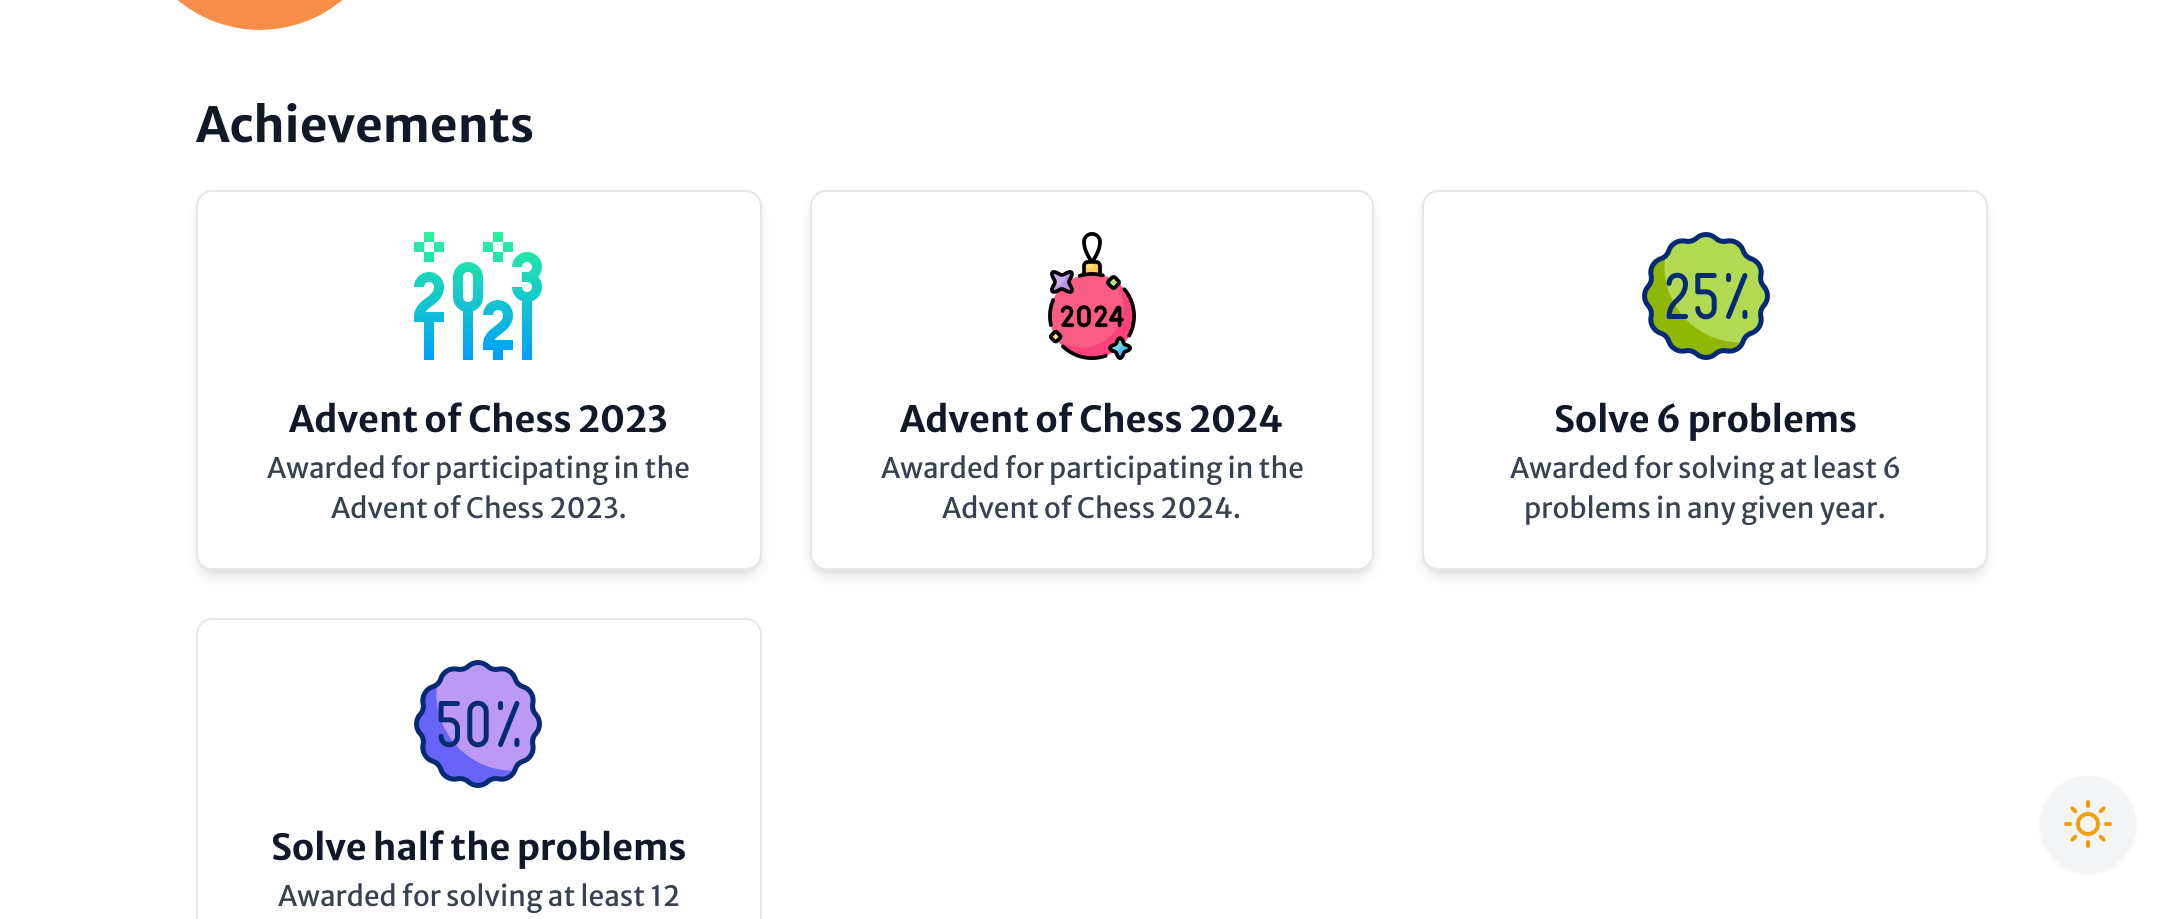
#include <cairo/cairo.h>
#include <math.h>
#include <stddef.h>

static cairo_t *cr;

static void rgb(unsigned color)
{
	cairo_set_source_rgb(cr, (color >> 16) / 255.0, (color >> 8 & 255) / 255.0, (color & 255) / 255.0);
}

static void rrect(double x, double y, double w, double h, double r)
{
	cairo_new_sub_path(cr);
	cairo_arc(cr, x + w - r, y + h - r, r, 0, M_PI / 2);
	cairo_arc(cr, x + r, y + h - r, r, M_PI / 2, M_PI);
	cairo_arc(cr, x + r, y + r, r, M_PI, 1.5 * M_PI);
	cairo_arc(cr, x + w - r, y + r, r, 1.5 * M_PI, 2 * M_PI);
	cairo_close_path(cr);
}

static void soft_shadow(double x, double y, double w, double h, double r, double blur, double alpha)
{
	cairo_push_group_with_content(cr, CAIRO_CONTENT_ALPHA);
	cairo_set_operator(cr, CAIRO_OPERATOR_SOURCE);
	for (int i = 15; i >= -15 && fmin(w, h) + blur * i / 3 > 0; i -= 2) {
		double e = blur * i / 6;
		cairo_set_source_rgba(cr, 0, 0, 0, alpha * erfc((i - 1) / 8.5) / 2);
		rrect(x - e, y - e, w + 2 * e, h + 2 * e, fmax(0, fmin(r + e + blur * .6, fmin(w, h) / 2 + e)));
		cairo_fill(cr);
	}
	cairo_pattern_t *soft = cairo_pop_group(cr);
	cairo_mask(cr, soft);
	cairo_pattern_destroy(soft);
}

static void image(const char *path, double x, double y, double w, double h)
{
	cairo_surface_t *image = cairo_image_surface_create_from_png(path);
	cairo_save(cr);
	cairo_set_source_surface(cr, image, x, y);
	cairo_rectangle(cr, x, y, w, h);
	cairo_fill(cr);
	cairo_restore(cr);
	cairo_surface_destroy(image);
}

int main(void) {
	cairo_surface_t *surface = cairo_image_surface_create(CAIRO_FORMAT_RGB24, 2184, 919);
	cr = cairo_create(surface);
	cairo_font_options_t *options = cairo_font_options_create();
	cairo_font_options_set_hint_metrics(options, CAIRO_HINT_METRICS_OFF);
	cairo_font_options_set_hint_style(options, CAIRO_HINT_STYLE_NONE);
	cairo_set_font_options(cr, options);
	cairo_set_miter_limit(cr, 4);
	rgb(0xffffff);
	cairo_paint(cr);
	image("img/1.png", 177, 0, 165, 30);
	rgb(0x000000);
	soft_shadow(200, 198, 558, 372, 12, 4, 0.1);
	soft_shadow(198, 200, 562, 376, 14, 6, 0.1);
	rgb(0xffffff);
	rrect(197, 191, 564, 378, 15);
	cairo_fill_preserve(cr);
	rgb(0xe5e7eb);
	cairo_stroke(cr);
	image("img/2.png", 414, 232, 128, 128);
	rgb(0x000000);
	soft_shadow(814, 198, 556, 372, 12, 4, 0.1);
	soft_shadow(812, 200, 560, 376, 14, 6, 0.1);
	rgb(0xffffff);
	rrect(811, 191, 562, 378, 15);
	cairo_fill_preserve(cr);
	rgb(0xe5e7eb);
	cairo_stroke(cr);
	image("img/3.png", 1048, 232, 88, 128);
	rgb(0x000000);
	soft_shadow(1426, 198, 558, 372, 12, 4, 0.1);
	soft_shadow(1424, 200, 562, 376, 14, 6, 0.1);
	rgb(0xffffff);
	rrect(1423, 191, 564, 378, 15);
	cairo_fill_preserve(cr);
	rgb(0xe5e7eb);
	cairo_stroke(cr);
	image("img/4.png", 1642, 232, 128, 128);
	rrect(197, 619, 564, 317, 15);
	cairo_stroke(cr);
	image("img/5.png", 414, 660, 128, 128);
	rgb(0x000000);
	soft_shadow(2040, 778, 96, 96, 48, 2, 0.05);
	rgb(0xf3f4f6);
	cairo_arc(cr, 2088, 824, 48, 0, 2 * M_PI);
	cairo_fill(cr);
	image("img/6.png", 2064, 800, 48, 48);
	cairo_select_font_face(cr, "Merriweather Sans", CAIRO_FONT_SLANT_NORMAL, CAIRO_FONT_WEIGHT_BOLD);
	cairo_set_font_size(cr, 48);
	rgb(0x111827);
	cairo_move_to(cr, 196, 142);
	cairo_show_text(cr, "Achievements");
	cairo_set_font_size(cr, 36);
	cairo_move_to(cr, 289, 432);
	cairo_show_text(cr, "Advent of Chess 2023");
	cairo_select_font_face(cr, "Merriweather Sans", CAIRO_FONT_SLANT_NORMAL, CAIRO_FONT_WEIGHT_NORMAL);
	cairo_set_font_size(cr, 28);
	rgb(0x374151);
	cairo_move_to(cr, 267, 478);
	cairo_show_text(cr, "Awarded for participating in the");
	cairo_move_to(cr, 331, 518);
	cairo_show_text(cr, "Advent of Chess 2023.");
	cairo_select_font_face(cr, "Merriweather Sans", CAIRO_FONT_SLANT_NORMAL, CAIRO_FONT_WEIGHT_BOLD);
	cairo_set_font_size(cr, 36);
	rgb(0x111827);
	cairo_move_to(cr, 900, 432);
	cairo_show_text(cr, "Advent of Chess 2024");
	cairo_select_font_face(cr, "Merriweather Sans", CAIRO_FONT_SLANT_NORMAL, CAIRO_FONT_WEIGHT_NORMAL);
	cairo_set_font_size(cr, 28);
	rgb(0x374151);
	cairo_move_to(cr, 881, 478);
	cairo_show_text(cr, "Awarded for participating in the");
	cairo_move_to(cr, 942, 518);
	cairo_show_text(cr, "Advent of Chess 2024.");
	cairo_select_font_face(cr, "Merriweather Sans", CAIRO_FONT_SLANT_NORMAL, CAIRO_FONT_WEIGHT_BOLD);
	cairo_set_font_size(cr, 36);
	rgb(0x111827);
	cairo_move_to(cr, 1554, 432);
	cairo_show_text(cr, "Solve 6 problems");
	cairo_select_font_face(cr, "Merriweather Sans", CAIRO_FONT_SLANT_NORMAL, CAIRO_FONT_WEIGHT_NORMAL);
	cairo_set_font_size(cr, 28);
	rgb(0x374151);
	cairo_move_to(cr, 1510, 478);
	cairo_show_text(cr, "Awarded for solving at least 6");
	cairo_move_to(cr, 1524, 518);
	cairo_show_text(cr, "problems in any given year.");
	cairo_select_font_face(cr, "Merriweather Sans", CAIRO_FONT_SLANT_NORMAL, CAIRO_FONT_WEIGHT_BOLD);
	cairo_set_font_size(cr, 36);
	rgb(0x111827);
	cairo_move_to(cr, 271, 860);
	cairo_show_text(cr, "Solve half the problems");
	cairo_select_font_face(cr, "Merriweather Sans", CAIRO_FONT_SLANT_NORMAL, CAIRO_FONT_WEIGHT_NORMAL);
	cairo_set_font_size(cr, 28);
	rgb(0x374151);
	cairo_move_to(cr, 278, 906);
	cairo_show_text(cr, "Awarded for solving at least 12");
	cairo_surface_write_to_png(surface, "page.png");
	cairo_font_options_destroy(options);
	cairo_destroy(cr);
	cairo_surface_destroy(surface);
	return 0;
}
